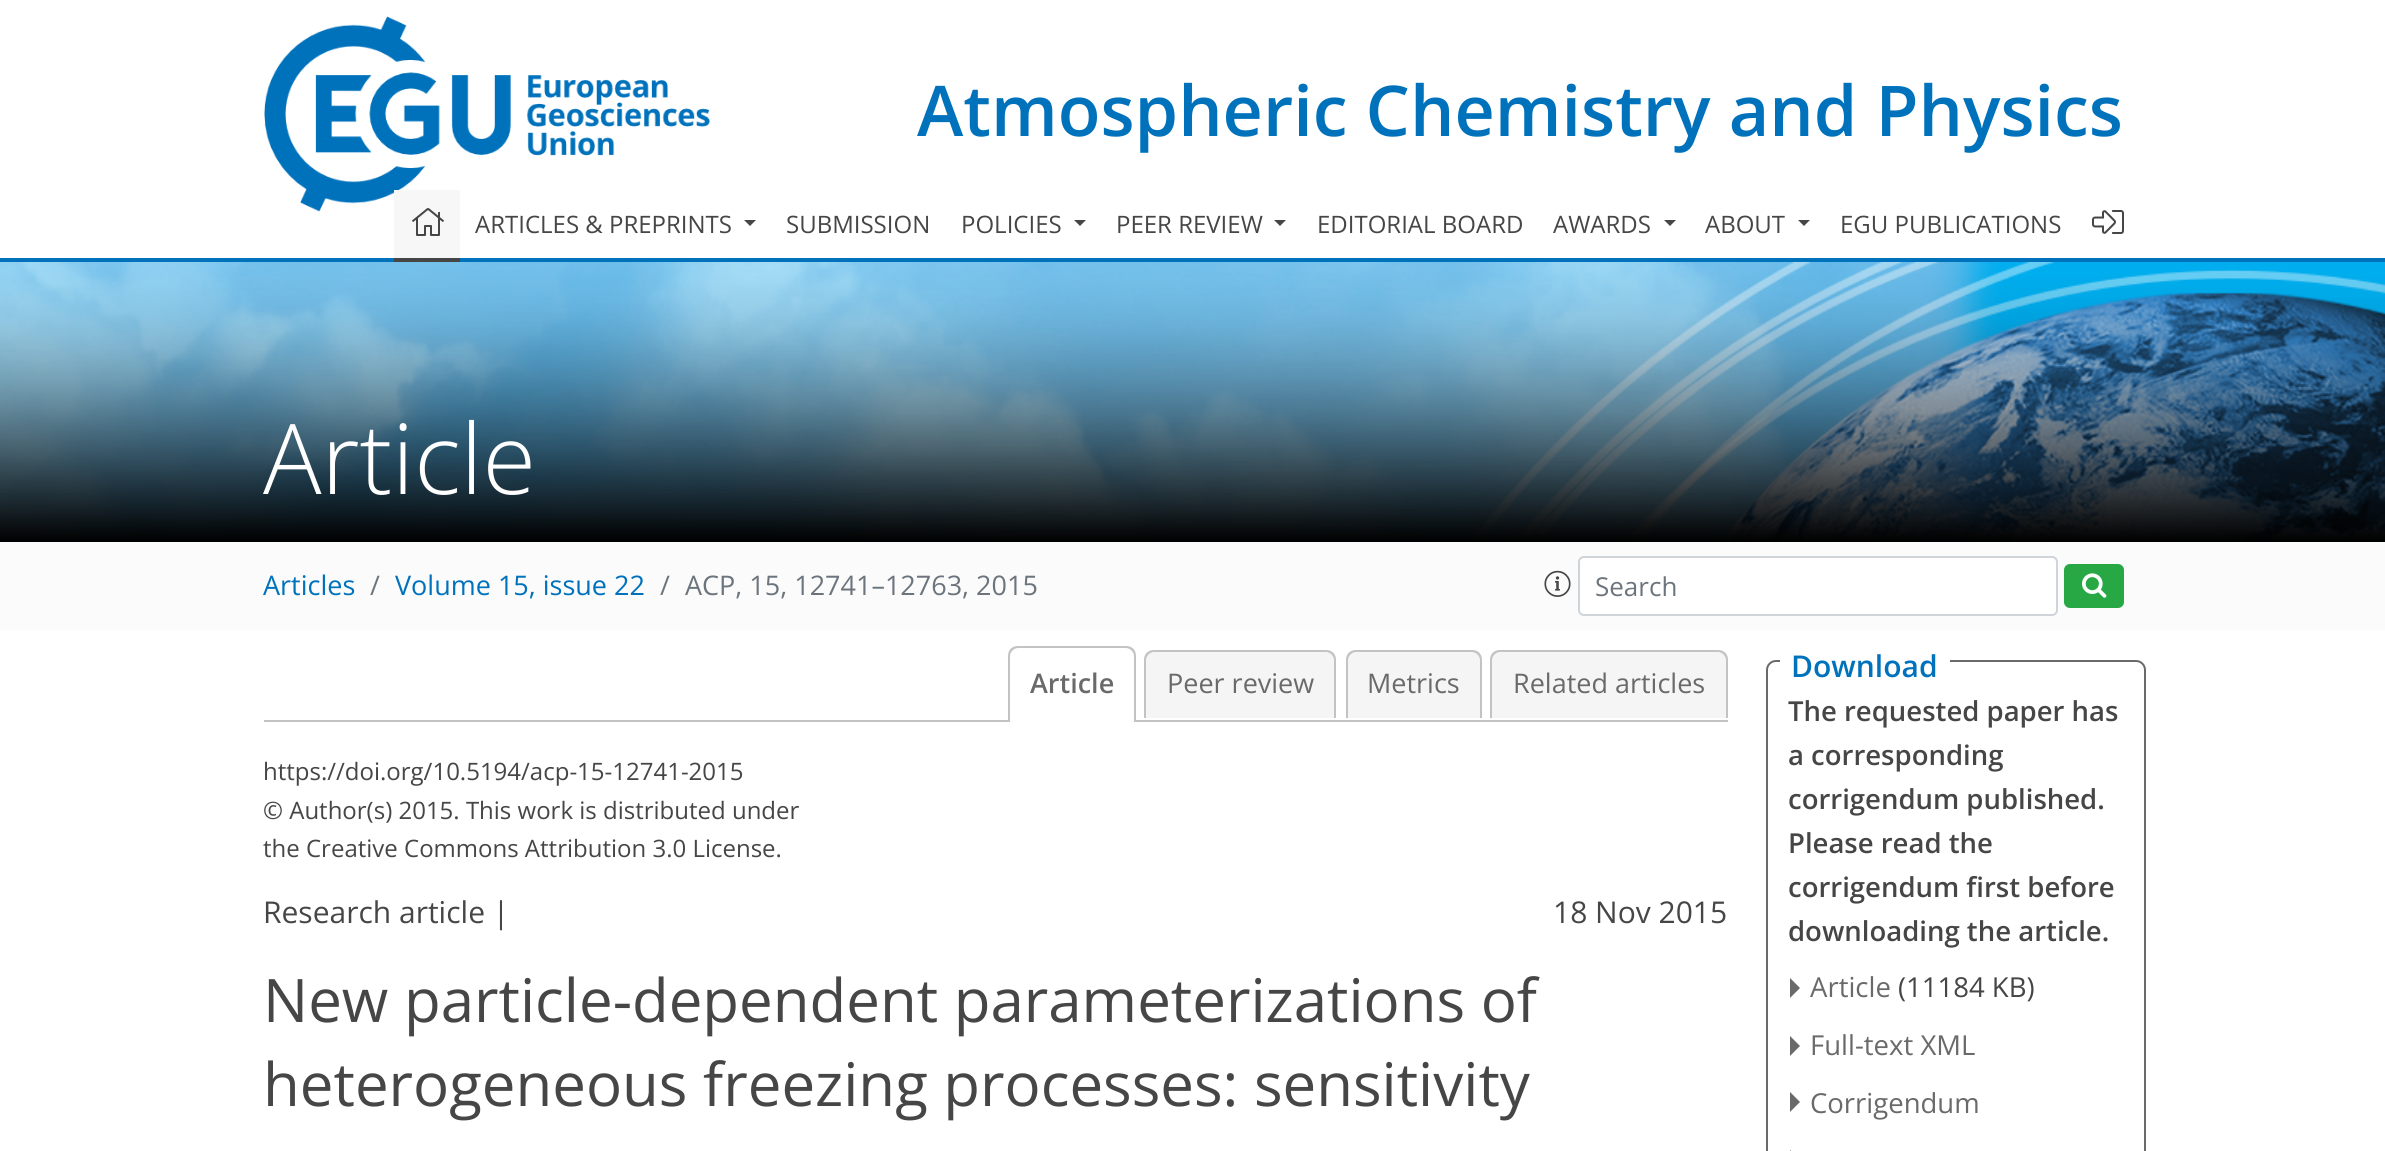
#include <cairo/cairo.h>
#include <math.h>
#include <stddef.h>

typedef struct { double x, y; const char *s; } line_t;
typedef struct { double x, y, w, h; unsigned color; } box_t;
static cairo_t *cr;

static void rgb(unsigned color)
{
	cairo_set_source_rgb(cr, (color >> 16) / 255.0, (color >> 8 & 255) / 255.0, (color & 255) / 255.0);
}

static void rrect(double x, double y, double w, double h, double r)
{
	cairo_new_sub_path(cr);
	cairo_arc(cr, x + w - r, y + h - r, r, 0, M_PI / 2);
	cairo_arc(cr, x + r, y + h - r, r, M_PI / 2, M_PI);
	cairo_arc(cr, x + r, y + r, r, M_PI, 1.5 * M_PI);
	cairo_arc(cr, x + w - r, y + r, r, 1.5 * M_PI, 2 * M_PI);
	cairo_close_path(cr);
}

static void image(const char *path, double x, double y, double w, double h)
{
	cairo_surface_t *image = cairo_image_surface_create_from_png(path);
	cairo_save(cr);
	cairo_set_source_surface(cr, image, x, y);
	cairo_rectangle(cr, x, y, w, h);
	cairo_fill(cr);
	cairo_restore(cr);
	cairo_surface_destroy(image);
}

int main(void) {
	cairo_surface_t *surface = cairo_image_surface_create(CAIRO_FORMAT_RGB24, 2385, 1151);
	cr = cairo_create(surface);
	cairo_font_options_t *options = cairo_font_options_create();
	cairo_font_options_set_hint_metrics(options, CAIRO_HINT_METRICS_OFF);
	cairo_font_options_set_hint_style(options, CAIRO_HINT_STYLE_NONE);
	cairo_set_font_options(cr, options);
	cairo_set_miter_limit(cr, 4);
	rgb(0xffffff);
	cairo_paint(cr);
	image("img/1.png", 264, 16, 446, 196);
	{
		static const box_t items[] = {
			{0, 258, 2385, 4, 0x0072bc},
			{394, 190, 66, 68, 0xf7f7f7},
			{394, 258, 66, 4, 0x464646},
		};
		for (size_t i = 0; i < sizeof items / sizeof *items; i++) {
			rgb(items[i].color);
			cairo_rectangle(cr, items[i].x, items[i].y, items[i].w, items[i].h);
			cairo_fill(cr);
		}
	}
	image("img/2.png", 412, 208, 32, 28);
	cairo_new_path(cr);
	cairo_move_to(cr, 744, 220);
	cairo_line_to(cr, 756, 220);
	cairo_line_to(cr, 750, 226);
	cairo_close_path(cr);
	cairo_fill(cr);
	cairo_new_path(cr);
	cairo_move_to(cr, 1074, 220);
	cairo_line_to(cr, 1086, 220);
	cairo_line_to(cr, 1080, 226);
	cairo_close_path(cr);
	cairo_fill(cr);
	cairo_new_path(cr);
	cairo_move_to(cr, 1274, 220);
	cairo_line_to(cr, 1286, 220);
	cairo_line_to(cr, 1280, 226);
	cairo_close_path(cr);
	cairo_fill(cr);
	cairo_new_path(cr);
	cairo_move_to(cr, 1664, 220);
	cairo_line_to(cr, 1676, 220);
	cairo_line_to(cr, 1670, 226);
	cairo_close_path(cr);
	cairo_fill(cr);
	cairo_new_path(cr);
	cairo_move_to(cr, 1798, 220);
	cairo_line_to(cr, 1810, 220);
	cairo_line_to(cr, 1804, 226);
	cairo_close_path(cr);
	cairo_fill(cr);
	image("img/3.png", 2092, 210, 32, 24);
	image("img/4.png", 0, 262, 2385, 280);
	rgb(0xfbfbfb);
	cairo_rectangle(cr, 0, 542, 2385, 88);
	cairo_fill(cr);
	image("img/5.png", 1544, 570, 27, 27);
	rgb(0xffffff);
	rrect(1579, 557, 478, 58, 5);
	cairo_fill_preserve(cr);
	rgb(0xced4da);
	cairo_stroke(cr);
	rgb(0x28a745);
	rrect(2065, 565, 58, 42, 5);
	cairo_fill_preserve(cr);
	cairo_stroke(cr);
	image("img/6.png", 2082, 573, 25, 25);
	rgb(0xc3c3c3);
	cairo_rectangle(cr, 264, 720, 1464, 2);
	cairo_fill(cr);
	rgb(0xffffff);
	cairo_new_path(cr);
	cairo_move_to(cr, 1018, 646);
	cairo_line_to(cr, 1126, 646);
	cairo_curve_to(cr, 1131.5, 646, 1136, 650.5, 1136, 656);
	cairo_line_to(cr, 1136, 722);
	cairo_line_to(cr, 1008, 722);
	cairo_line_to(cr, 1008, 656);
	cairo_curve_to(cr, 1008, 650.5, 1012.5, 646, 1018, 646);
	cairo_close_path(cr);
	cairo_fill(cr);
	rgb(0xc3c3c3);
	cairo_set_fill_rule(cr, CAIRO_FILL_RULE_EVEN_ODD);
	cairo_new_path(cr);
	cairo_move_to(cr, 1018, 646);
	cairo_line_to(cr, 1126, 646);
	cairo_curve_to(cr, 1132, 646, 1136, 650, 1136, 656);
	cairo_line_to(cr, 1136, 722);
	cairo_line_to(cr, 1008, 722);
	cairo_line_to(cr, 1008, 656);
	cairo_curve_to(cr, 1008, 650, 1012, 646, 1018, 646);
	cairo_close_path(cr);
	cairo_move_to(cr, 1018, 648);
	cairo_line_to(cr, 1126, 648);
	cairo_curve_to(cr, 1130, 648, 1134, 652, 1134, 656);
	cairo_line_to(cr, 1134, 722);
	cairo_line_to(cr, 1010, 722);
	cairo_line_to(cr, 1010, 656);
	cairo_curve_to(cr, 1010, 652, 1014, 648, 1018, 648);
	cairo_close_path(cr);
	cairo_fill(cr);
	rgb(0xf5f5f5);
	cairo_new_path(cr);
	cairo_move_to(cr, 1154, 650);
	cairo_line_to(cr, 1326, 650);
	cairo_curve_to(cr, 1331.5, 650, 1336, 654.5, 1336, 660);
	cairo_line_to(cr, 1336, 718);
	cairo_line_to(cr, 1144, 718);
	cairo_line_to(cr, 1144, 660);
	cairo_curve_to(cr, 1144, 654.5, 1148.5, 650, 1154, 650);
	cairo_close_path(cr);
	cairo_fill(cr);
	rgb(0xc3c3c3);
	cairo_new_path(cr);
	cairo_move_to(cr, 1154, 650);
	cairo_line_to(cr, 1326, 650);
	cairo_curve_to(cr, 1332, 650, 1336, 654, 1336, 660);
	cairo_line_to(cr, 1336, 718);
	cairo_line_to(cr, 1144, 718);
	cairo_line_to(cr, 1144, 660);
	cairo_curve_to(cr, 1144, 654, 1148, 650, 1154, 650);
	cairo_close_path(cr);
	cairo_move_to(cr, 1154, 652);
	cairo_line_to(cr, 1326, 652);
	cairo_curve_to(cr, 1330, 652, 1334, 656, 1334, 660);
	cairo_line_to(cr, 1334, 718);
	cairo_line_to(cr, 1146, 718);
	cairo_line_to(cr, 1146, 660);
	cairo_curve_to(cr, 1146, 656, 1150, 652, 1154, 652);
	cairo_close_path(cr);
	cairo_fill(cr);
	rgb(0xf5f5f5);
	cairo_new_path(cr);
	cairo_move_to(cr, 1356, 650);
	cairo_line_to(cr, 1472, 650);
	cairo_curve_to(cr, 1477.5, 650, 1482, 654.5, 1482, 660);
	cairo_line_to(cr, 1482, 718);
	cairo_line_to(cr, 1346, 718);
	cairo_line_to(cr, 1346, 660);
	cairo_curve_to(cr, 1346, 654.5, 1350.5, 650, 1356, 650);
	cairo_close_path(cr);
	cairo_fill(cr);
	rgb(0xc3c3c3);
	cairo_new_path(cr);
	cairo_move_to(cr, 1356, 650);
	cairo_line_to(cr, 1472, 650);
	cairo_curve_to(cr, 1478, 650, 1482, 654, 1482, 660);
	cairo_line_to(cr, 1482, 718);
	cairo_line_to(cr, 1346, 718);
	cairo_line_to(cr, 1346, 660);
	cairo_curve_to(cr, 1346, 654, 1350, 650, 1356, 650);
	cairo_close_path(cr);
	cairo_move_to(cr, 1356, 652);
	cairo_line_to(cr, 1472, 652);
	cairo_curve_to(cr, 1476, 652, 1480, 656, 1480, 660);
	cairo_line_to(cr, 1480, 718);
	cairo_line_to(cr, 1348, 718);
	cairo_line_to(cr, 1348, 660);
	cairo_curve_to(cr, 1348, 656, 1352, 652, 1356, 652);
	cairo_close_path(cr);
	cairo_fill(cr);
	rgb(0xf5f5f5);
	cairo_new_path(cr);
	cairo_move_to(cr, 1500, 650);
	cairo_line_to(cr, 1718, 650);
	cairo_curve_to(cr, 1723.5, 650, 1728, 654.5, 1728, 660);
	cairo_line_to(cr, 1728, 718);
	cairo_line_to(cr, 1490, 718);
	cairo_line_to(cr, 1490, 660);
	cairo_curve_to(cr, 1490, 654.5, 1494.5, 650, 1500, 650);
	cairo_close_path(cr);
	cairo_fill(cr);
	rgb(0xc3c3c3);
	cairo_new_path(cr);
	cairo_move_to(cr, 1500, 650);
	cairo_line_to(cr, 1718, 650);
	cairo_curve_to(cr, 1724, 650, 1728, 654, 1728, 660);
	cairo_line_to(cr, 1728, 718);
	cairo_line_to(cr, 1490, 718);
	cairo_line_to(cr, 1490, 660);
	cairo_curve_to(cr, 1490, 654, 1494, 650, 1500, 650);
	cairo_close_path(cr);
	cairo_move_to(cr, 1500, 652);
	cairo_line_to(cr, 1718, 652);
	cairo_curve_to(cr, 1722, 652, 1726, 656, 1726, 660);
	cairo_line_to(cr, 1726, 718);
	cairo_line_to(cr, 1492, 718);
	cairo_line_to(cr, 1492, 660);
	cairo_curve_to(cr, 1492, 656, 1496, 652, 1500, 652);
	cairo_close_path(cr);
	cairo_fill(cr);
	rrect(1767, 661, 378, 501, 9);
	rgb(0x6a6a6a);
	cairo_stroke(cr);
	rgb(0xffffff);
	cairo_rectangle(cr, 1780, 660, 170, 2);
	cairo_fill(cr);
	rgb(0x6a6a6a);
	cairo_set_fill_rule(cr, CAIRO_FILL_RULE_WINDING);
	cairo_new_path(cr);
	cairo_move_to(cr, 1790, 998);
	cairo_line_to(cr, 1790, 978);
	cairo_line_to(cr, 1800, 988);
	cairo_close_path(cr);
	cairo_fill(cr);
	cairo_new_path(cr);
	cairo_move_to(cr, 1790, 1056);
	cairo_line_to(cr, 1790, 1036);
	cairo_line_to(cr, 1800, 1046);
	cairo_close_path(cr);
	cairo_fill(cr);
	cairo_new_path(cr);
	cairo_move_to(cr, 1790, 1112);
	cairo_line_to(cr, 1790, 1092);
	cairo_line_to(cr, 1800, 1102);
	cairo_close_path(cr);
	cairo_move_to(cr, 1790, 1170);
	cairo_line_to(cr, 1790, 1150);
	cairo_line_to(cr, 1800, 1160);
	cairo_close_path(cr);
	cairo_fill(cr);
	cairo_select_font_face(cr, "Open Sans SemiBold", CAIRO_FONT_SLANT_NORMAL, CAIRO_FONT_WEIGHT_NORMAL);
	cairo_set_font_size(cr, 70);
	rgb(0x0072bc);
	cairo_move_to(cr, 917, 136);
	cairo_show_text(cr, "Atmospheric Chemistry and Physics");
	cairo_select_font_face(cr, "Open Sans", CAIRO_FONT_SLANT_NORMAL, CAIRO_FONT_WEIGHT_NORMAL);
	cairo_set_font_size(cr, 24);
	rgb(0x464646);
	{
		static const line_t items[] = {
			{475, 233, "ARTICLES & PREPRINTS"},
			{786, 233, "SUBMISSION"},
			{961, 233, "POLICIES"},
			{1116, 233, "PEER REVIEW"},
			{1317, 233, "EDITORIAL BOARD"},
			{1553, 233, "AWARDS"},
			{1705, 233, "ABOUT"},
			{1840, 233, "EGU PUBLICATIONS"},
		};
		for (size_t i = 0; i < sizeof items / sizeof *items; i++) {
			cairo_move_to(cr, items[i].x, items[i].y);
			cairo_show_text(cr, items[i].s);
		}
	}
	cairo_select_font_face(cr, "Open Sans Light", CAIRO_FONT_SLANT_NORMAL, CAIRO_FONT_WEIGHT_NORMAL);
	cairo_set_font_size(cr, 97.5);
	rgb(0xffffff);
	cairo_move_to(cr, 263, 494);
	cairo_show_text(cr, "Article");
	cairo_select_font_face(cr, "Open Sans", CAIRO_FONT_SLANT_NORMAL, CAIRO_FONT_WEIGHT_NORMAL);
	cairo_set_font_size(cr, 27);
	rgb(0x0072bc);
	cairo_move_to(cr, 263, 595);
	cairo_show_text(cr, "Articles");
	rgb(0x6c757d);
	cairo_move_to(cr, 370, 595);
	cairo_show_text(cr, "/");
	rgb(0x0072bc);
	cairo_move_to(cr, 395, 595);
	cairo_show_text(cr, "Volume 15, issue 22");
	rgb(0x6c757d);
	cairo_move_to(cr, 660, 595);
	cairo_show_text(cr, "/");
	cairo_move_to(cr, 685, 595);
	cairo_show_text(cr, "ACP, 15, 12741–12763, 2015");
	cairo_set_font_size(cr, 26);
	cairo_move_to(cr, 1595, 596);
	cairo_show_text(cr, "Search");
	cairo_select_font_face(cr, "Open Sans SemiBold", CAIRO_FONT_SLANT_NORMAL, CAIRO_FONT_WEIGHT_NORMAL);
	cairo_set_font_size(cr, 27);
	rgb(0x6a6a6a);
	cairo_move_to(cr, 1030, 693);
	cairo_show_text(cr, "Article");
	cairo_select_font_face(cr, "Open Sans", CAIRO_FONT_SLANT_NORMAL, CAIRO_FONT_WEIGHT_NORMAL);
	{
		static const line_t items[] = {
			{1167, 693, "Peer review"},
			{1367, 693, "Metrics"},
			{1513, 693, "Related articles"},
		};
		for (size_t i = 0; i < sizeof items / sizeof *items; i++) {
			cairo_move_to(cr, items[i].x, items[i].y);
			cairo_show_text(cr, items[i].s);
		}
	}
	cairo_set_font_size(cr, 24);
	rgb(0x464646);
	{
		static const line_t items[] = {
			{263, 780, "https://doi.org/10.5194/acp-15-12741-2015"},
			{263, 819, "© Author(s) 2015. This work is distributed under"},
			{263, 857, "the Creative Commons Attribution 3.0 License."},
		};
		for (size_t i = 0; i < sizeof items / sizeof *items; i++) {
			cairo_move_to(cr, items[i].x, items[i].y);
			cairo_show_text(cr, items[i].s);
		}
	}
	cairo_set_font_size(cr, 30);
	cairo_move_to(cr, 263, 923);
	cairo_show_text(cr, "Research article |");
	cairo_move_to(cr, 1553, 923);
	cairo_show_text(cr, "18 Nov 2015");
	cairo_set_font_size(cr, 60);
	cairo_move_to(cr, 263, 1022);
	cairo_show_text(cr, "New particle-dependent parameterizations of");
	cairo_move_to(cr, 263, 1106);
	cairo_show_text(cr, "heterogeneous freezing processes: sensitivity");
	cairo_select_font_face(cr, "Open Sans SemiBold", CAIRO_FONT_SLANT_NORMAL, CAIRO_FONT_WEIGHT_NORMAL);
	cairo_set_font_size(cr, 30);
	rgb(0x0072bc);
	cairo_move_to(cr, 1791, 677);
	cairo_show_text(cr, "Download");
	cairo_set_font_size(cr, 27.5);
	rgb(0x464646);
	{
		static const line_t items[] = {
			{1788, 721, "The requested paper has"},
			{1788, 765, "a corresponding"},
			{1788, 809, "corrigendum published."},
			{1788, 853, "Please read the"},
			{1788, 897, "corrigendum first before"},
			{1788, 941, "downloading the article."},
		};
		for (size_t i = 0; i < sizeof items / sizeof *items; i++) {
			cairo_move_to(cr, items[i].x, items[i].y);
			cairo_show_text(cr, items[i].s);
		}
	}
	cairo_select_font_face(cr, "Open Sans", CAIRO_FONT_SLANT_NORMAL, CAIRO_FONT_WEIGHT_NORMAL);
	rgb(0x6a6a6a);
	cairo_move_to(cr, 1810, 997);
	cairo_show_text(cr, "Article");
	rgb(0x464646);
	cairo_move_to(cr, 1898, 997);
	cairo_show_text(cr, "(11184 KB)");
	rgb(0x6a6a6a);
	cairo_move_to(cr, 1810, 1055);
	cairo_show_text(cr, "Full-text XML");
	cairo_move_to(cr, 1810, 1113);
	cairo_show_text(cr, "Corrigendum");
	cairo_surface_write_to_png(surface, "page.png");
	cairo_font_options_destroy(options);
	cairo_destroy(cr);
	cairo_surface_destroy(surface);
	return 0;
}
